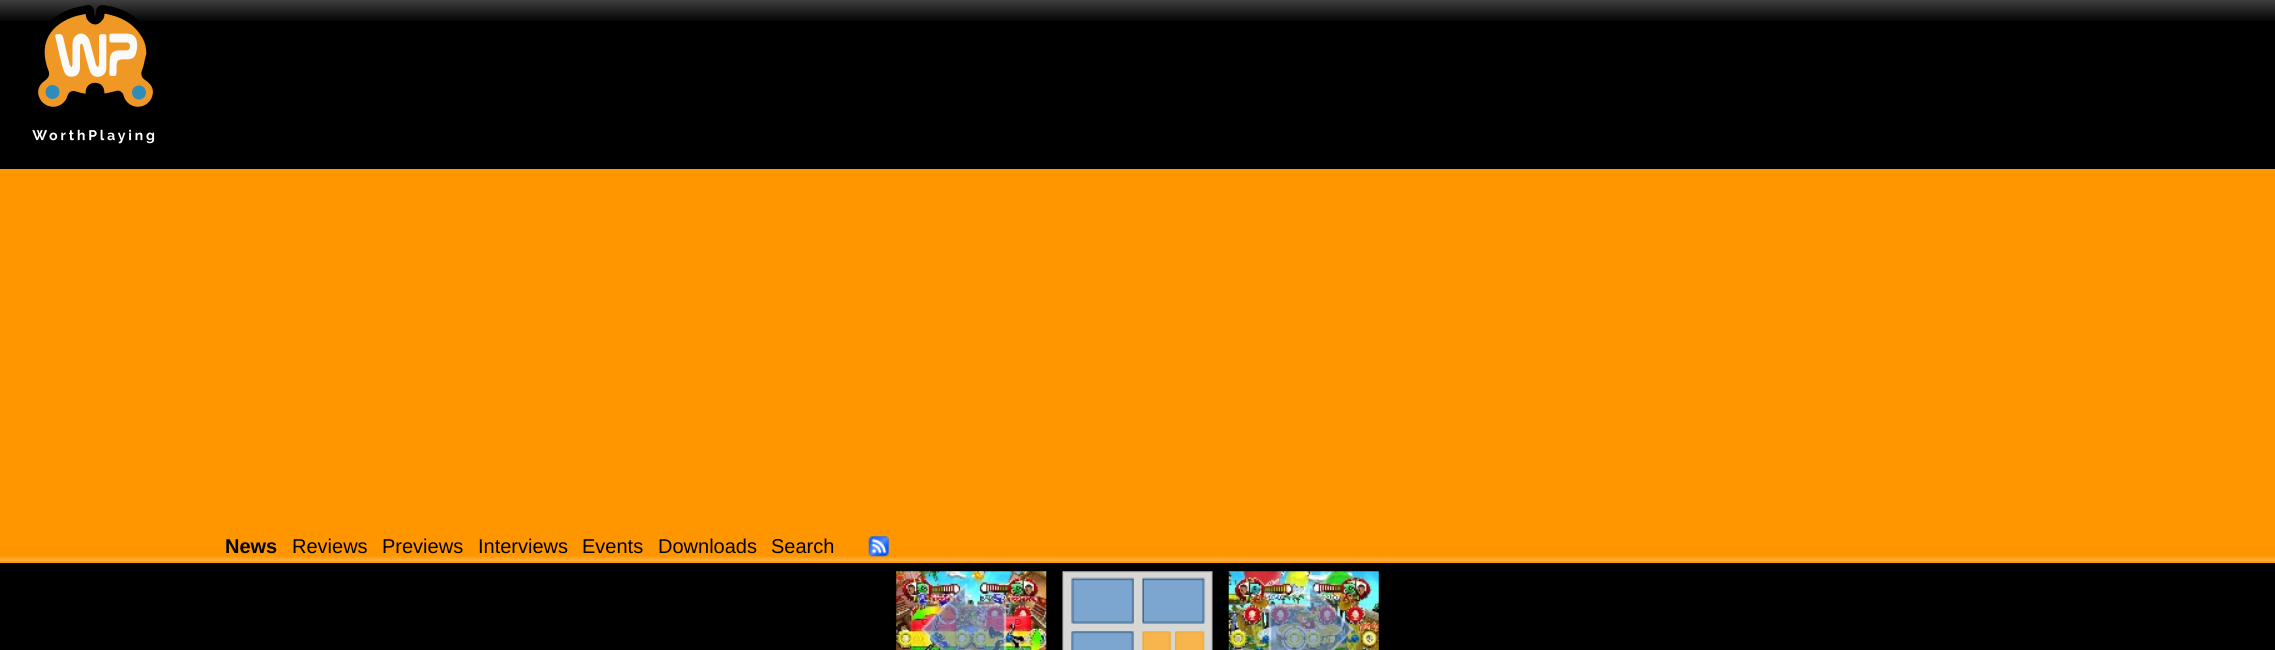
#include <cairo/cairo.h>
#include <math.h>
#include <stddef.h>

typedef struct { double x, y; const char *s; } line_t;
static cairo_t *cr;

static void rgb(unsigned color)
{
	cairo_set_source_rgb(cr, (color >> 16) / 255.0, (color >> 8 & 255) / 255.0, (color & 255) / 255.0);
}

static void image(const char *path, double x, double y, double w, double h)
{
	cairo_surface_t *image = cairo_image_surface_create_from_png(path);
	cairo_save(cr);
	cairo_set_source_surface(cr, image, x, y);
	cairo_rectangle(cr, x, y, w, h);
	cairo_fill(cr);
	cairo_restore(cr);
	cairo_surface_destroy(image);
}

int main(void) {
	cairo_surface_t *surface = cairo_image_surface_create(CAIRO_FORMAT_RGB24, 2275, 650);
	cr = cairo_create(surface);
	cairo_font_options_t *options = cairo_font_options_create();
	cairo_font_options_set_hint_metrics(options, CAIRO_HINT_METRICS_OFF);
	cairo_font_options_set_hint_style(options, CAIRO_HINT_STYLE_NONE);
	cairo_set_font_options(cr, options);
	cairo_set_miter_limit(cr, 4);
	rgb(0x000000);
	cairo_paint(cr);
	image("img/1.png", 0, 0, 2275, 21);
	image("img/2.png", 32, 5, 123, 139);
	rgb(0xff9600);
	cairo_rectangle(cr, 0, 169, 2275, 394);
	cairo_fill(cr);
	image("img/3.png", 0, 556, 2275, 6);
	image("img/4.png", 868, 536, 21, 21);
	image("img/5.png", 896, 571, 151, 79);
	image("img/6.png", 921, 583, 86, 67);
	image("img/7.png", 1062, 571, 151, 79);
	image("img/8.png", 1228, 571, 151, 79);
	image("img/9.png", 1268, 583, 86, 67);
	cairo_select_font_face(cr, "Liberation Sans", CAIRO_FONT_SLANT_NORMAL, CAIRO_FONT_WEIGHT_BOLD);
	cairo_set_font_size(cr, 20);
	rgb(0x000000);
	cairo_move_to(cr, 225, 553);
	cairo_show_text(cr, "News");
	cairo_select_font_face(cr, "Liberation Sans", CAIRO_FONT_SLANT_NORMAL, CAIRO_FONT_WEIGHT_NORMAL);
	{
		static const line_t items[] = {
			{292, 553, "Reviews"},
			{382, 553, "Previews"},
			{478, 553, "Interviews"},
			{582, 553, "Events"},
			{658, 553, "Downloads"},
			{771, 553, "Search"},
		};
		for (size_t i = 0; i < sizeof items / sizeof *items; i++) {
			cairo_move_to(cr, items[i].x, items[i].y);
			cairo_show_text(cr, items[i].s);
		}
	}
	cairo_surface_write_to_png(surface, "page.png");
	cairo_font_options_destroy(options);
	cairo_destroy(cr);
	cairo_surface_destroy(surface);
	return 0;
}
